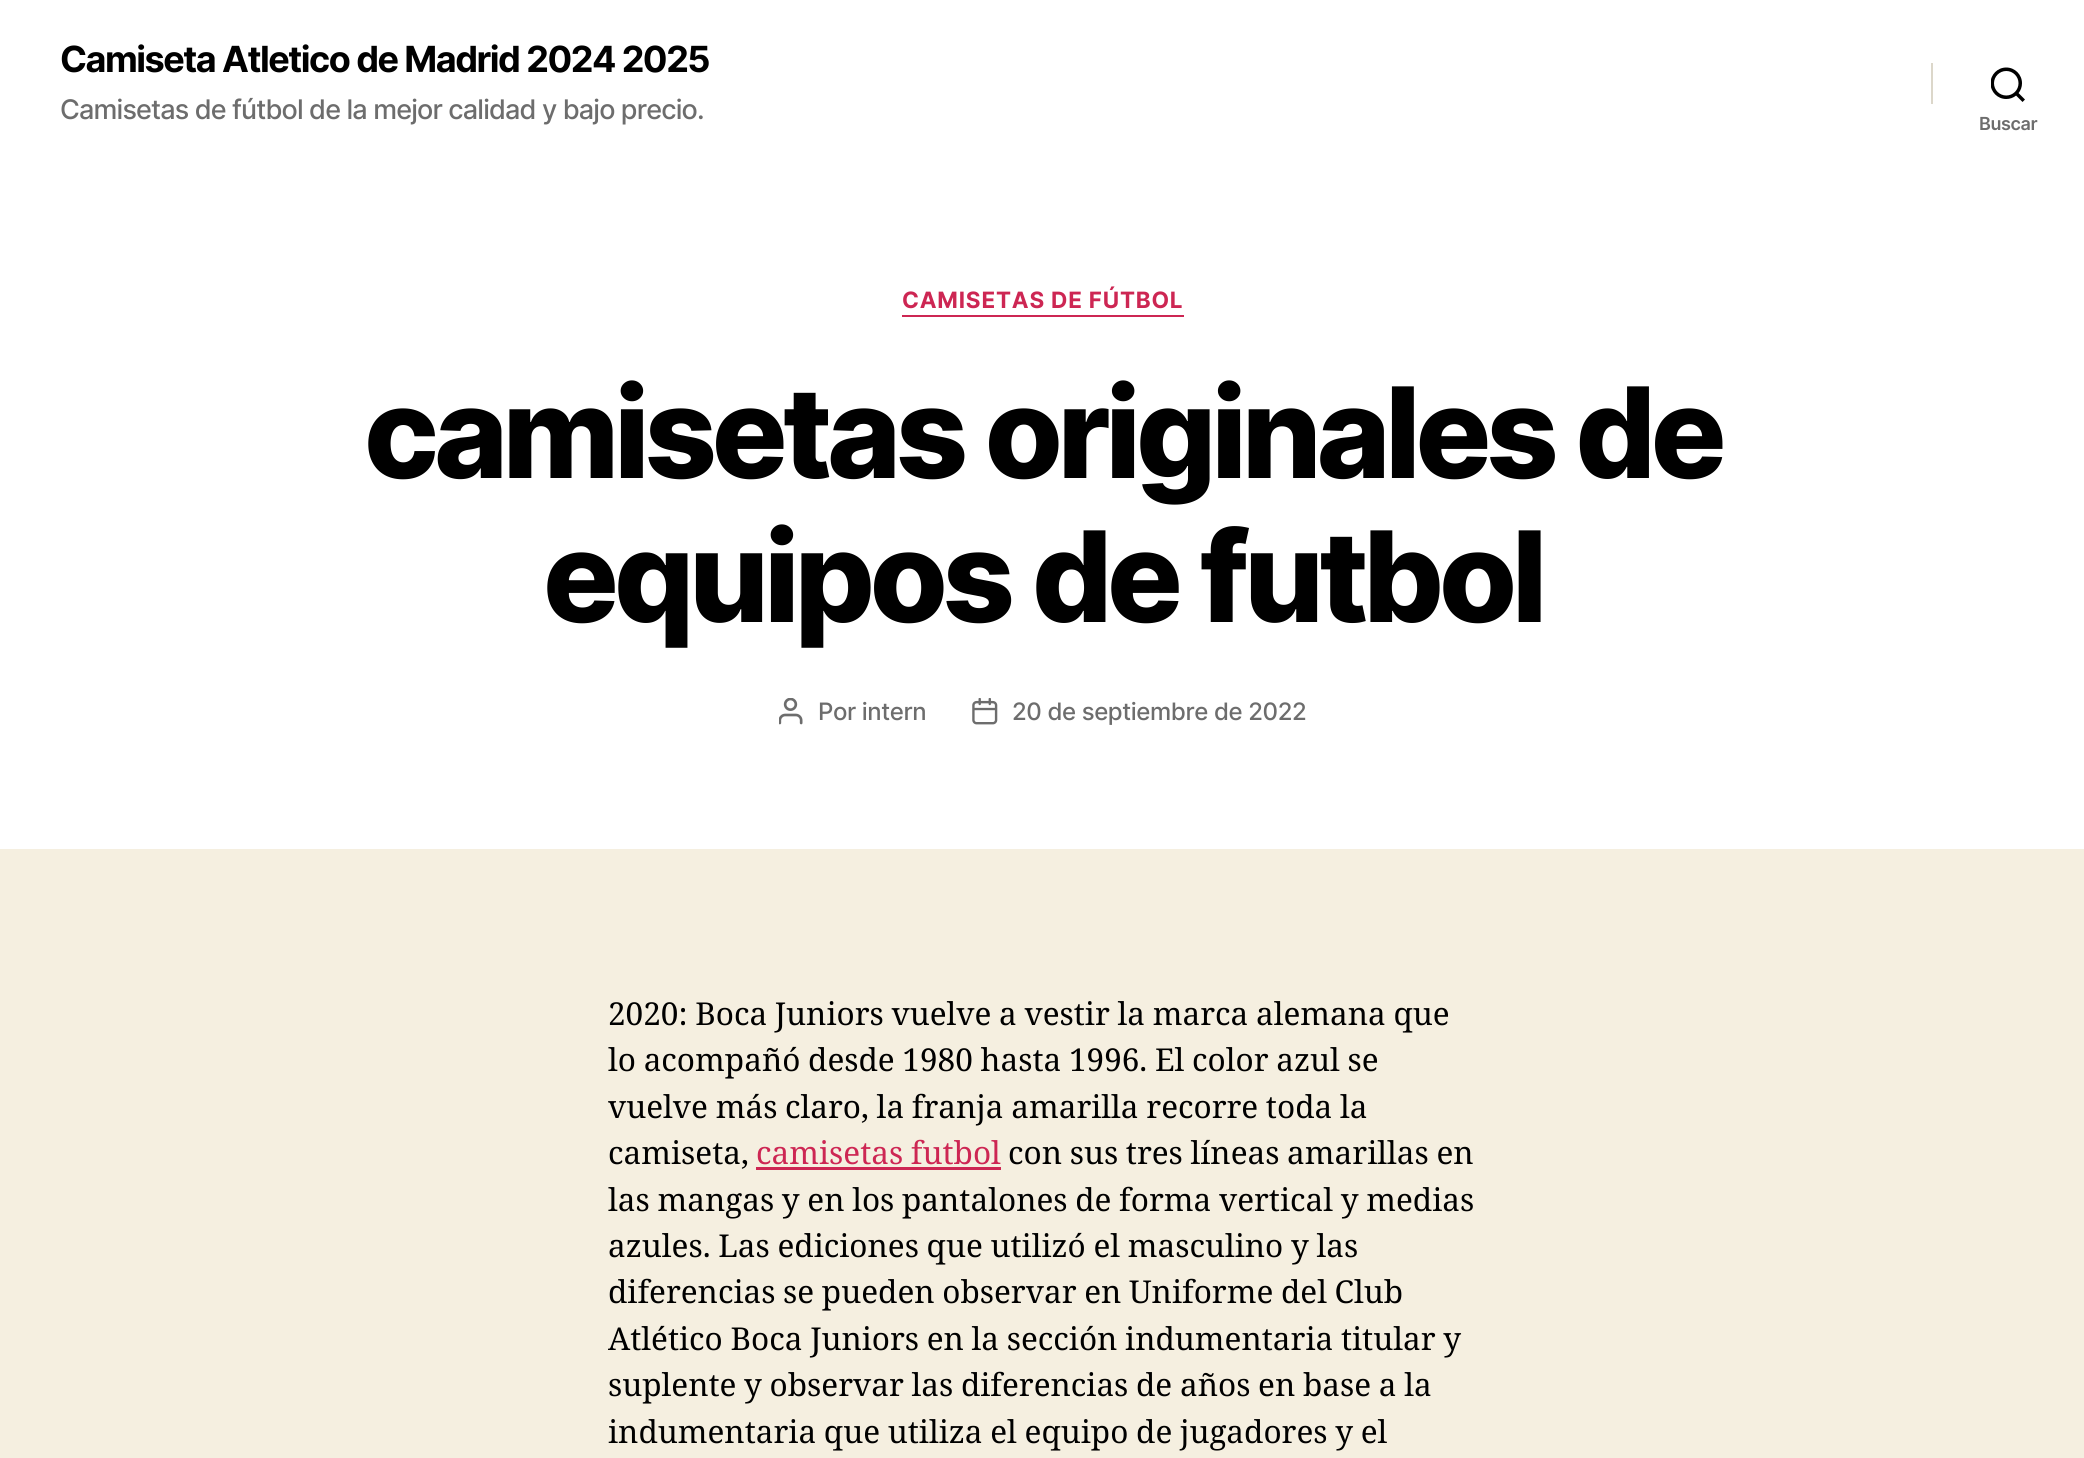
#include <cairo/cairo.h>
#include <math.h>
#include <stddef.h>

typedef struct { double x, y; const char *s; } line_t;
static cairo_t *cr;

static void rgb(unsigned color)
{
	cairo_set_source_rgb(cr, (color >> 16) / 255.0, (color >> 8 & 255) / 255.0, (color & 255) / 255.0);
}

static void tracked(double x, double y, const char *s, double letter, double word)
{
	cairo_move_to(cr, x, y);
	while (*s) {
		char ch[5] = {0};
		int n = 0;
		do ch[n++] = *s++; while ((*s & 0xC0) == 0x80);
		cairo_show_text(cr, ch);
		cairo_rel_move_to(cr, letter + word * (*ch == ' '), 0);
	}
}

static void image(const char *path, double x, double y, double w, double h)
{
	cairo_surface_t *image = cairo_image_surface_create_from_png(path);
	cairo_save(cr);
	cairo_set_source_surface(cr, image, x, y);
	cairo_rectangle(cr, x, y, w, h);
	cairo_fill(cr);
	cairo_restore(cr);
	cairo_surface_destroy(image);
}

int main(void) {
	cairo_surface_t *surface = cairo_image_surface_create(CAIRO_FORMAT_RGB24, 2084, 1458);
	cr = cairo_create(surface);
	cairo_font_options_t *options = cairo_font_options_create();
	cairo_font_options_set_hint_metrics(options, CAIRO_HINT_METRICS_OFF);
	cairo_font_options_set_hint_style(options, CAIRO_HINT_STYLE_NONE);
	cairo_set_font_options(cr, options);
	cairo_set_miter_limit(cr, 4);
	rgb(0xf5efe0);
	cairo_paint(cr);
	rgb(0xffffff);
	cairo_rectangle(cr, 0, 0, 2084, 849);
	cairo_fill(cr);
	rgb(0xdcd7ca);
	cairo_rectangle(cr, 1931, 63, 2, 41);
	cairo_fill(cr);
	image("img/1.png", 1991, 67, 34, 35);
	rgb(0xcd2653);
	cairo_rectangle(cr, 902, 315, 282, 2);
	cairo_fill(cr);
	image("img/2.png", 779, 698, 24, 27);
	image("img/3.png", 972, 698, 26, 27);
	cairo_rectangle(cr, 756, 1167, 245, 3);
	cairo_fill(cr);
	cairo_select_font_face(cr, "Inter", CAIRO_FONT_SLANT_NORMAL, CAIRO_FONT_WEIGHT_BOLD);
	cairo_set_font_size(cr, 36);
	rgb(0x000000);
	tracked(60, 72, "Camiseta Atletico de Madrid 2024 2025", -1.5, 0);
	cairo_select_font_face(cr, "Inter Medium", CAIRO_FONT_SLANT_NORMAL, CAIRO_FONT_WEIGHT_NORMAL);
	cairo_set_font_size(cr, 27);
	rgb(0x6d6d6d);
	tracked(60, 119, "Camisetas de fútbol de la mejor calidad y bajo precio.", -0.85, 0);
	cairo_select_font_face(cr, "Inter SemiBold", CAIRO_FONT_SLANT_NORMAL, CAIRO_FONT_WEIGHT_NORMAL);
	cairo_set_font_size(cr, 18);
	tracked(1979, 130, "Buscar", -0.4, 0);
	cairo_select_font_face(cr, "Inter", CAIRO_FONT_SLANT_NORMAL, CAIRO_FONT_WEIGHT_BOLD);
	cairo_set_font_size(cr, 22.5);
	rgb(0xcd2653);
	tracked(902, 308, "CAMISETAS DE FÚTBOL", 0.8, 0);
	cairo_select_font_face(cr, "Inter ExtraBold", CAIRO_FONT_SLANT_NORMAL, CAIRO_FONT_WEIGHT_NORMAL);
	cairo_set_font_size(cr, 126);
	rgb(0x000000);
	tracked(364, 478, "camisetas originales de", -5.25, 0);
	tracked(543, 622, "equipos de futbol", -5.25, 0);
	cairo_select_font_face(cr, "Inter Medium", CAIRO_FONT_SLANT_NORMAL, CAIRO_FONT_WEIGHT_NORMAL);
	cairo_set_font_size(cr, 24);
	rgb(0x6d6d6d);
	tracked(818, 720, "Por intern", -0.4, 0);
	tracked(1012, 720, "20 de septiembre de 2022", -0.4, 0);
	cairo_select_font_face(cr, "Noto Serif", CAIRO_FONT_SLANT_NORMAL, CAIRO_FONT_WEIGHT_NORMAL);
	cairo_set_font_size(cr, 31.5);
	rgb(0x000000);
	{
		static const line_t items[] = {
			{608, 1025, "2020: Boca Juniors vuelve a vestir la marca alemana que"},
			{608, 1071, "lo acompañó desde 1980 hasta 1996. El color azul se"},
			{608, 1118, "vuelve más claro, la franja amarilla recorre toda la"},
		};
		for (size_t i = 0; i < sizeof items / sizeof *items; i++) {
			tracked(items[i].x, items[i].y, items[i].s, 0, -0.5);
		}
	}
	cairo_move_to(cr, 608, 1164);
	cairo_show_text(cr, "camiseta,");
	rgb(0xcd2653);
	tracked(756, 1164, "camisetas futbol", 0, -0.5);
	rgb(0x000000);
	{
		static const line_t items[] = {
			{1008, 1164, "con sus tres líneas amarillas en"},
			{608, 1211, "las mangas y en los pantalones de forma vertical y medias"},
			{608, 1257, "azules. Las ediciones que utilizó el masculino y las"},
			{608, 1303, "diferencias se pueden observar en Uniforme del Club"},
			{608, 1350, "Atlético Boca Juniors en la sección indumentaria titular y"},
			{608, 1396, "suplente y observar las diferencias de años en base a la"},
			{608, 1443, "indumentaria que utiliza el equipo de jugadores y el"},
		};
		for (size_t i = 0; i < sizeof items / sizeof *items; i++) {
			tracked(items[i].x, items[i].y, items[i].s, 0, -0.5);
		}
	}
	cairo_surface_write_to_png(surface, "page.png");
	cairo_font_options_destroy(options);
	cairo_destroy(cr);
	cairo_surface_destroy(surface);
	return 0;
}
